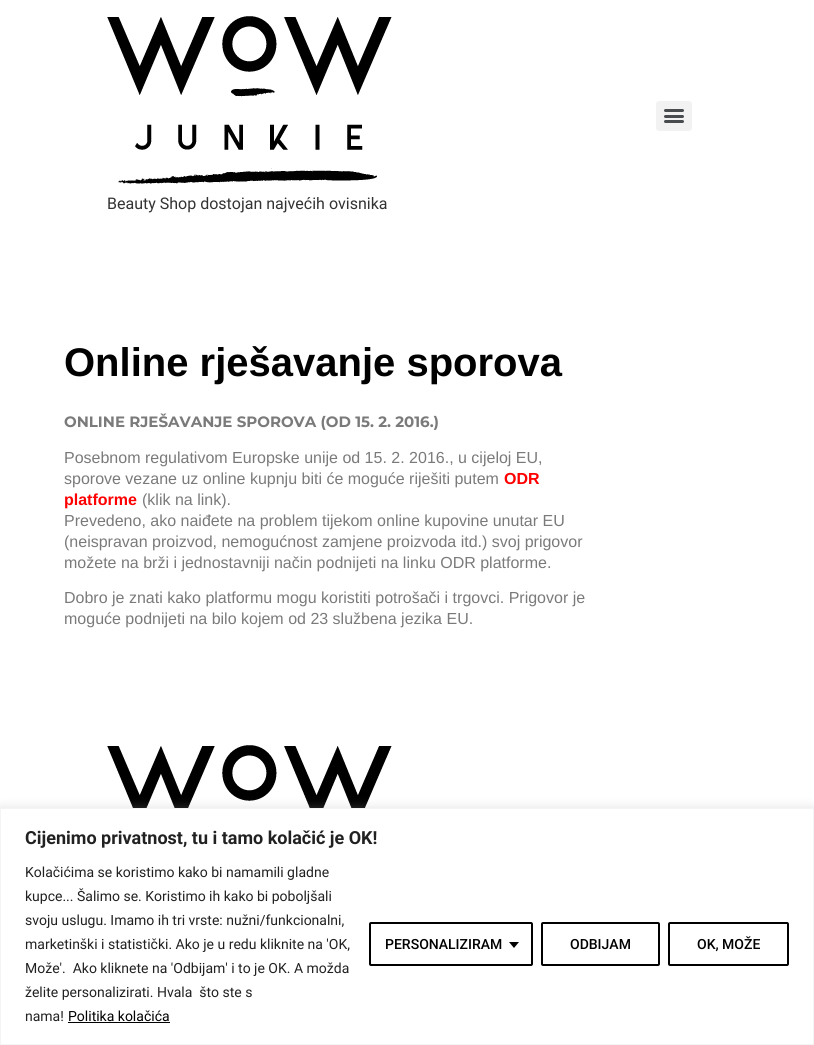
#include <cairo/cairo.h>
#include <math.h>
#include <stddef.h>

typedef struct { double x, y; const char *s; } line_t;
static cairo_t *cr;

static void rgb(unsigned color)
{
	cairo_set_source_rgb(cr, (color >> 16) / 255.0, (color >> 8 & 255) / 255.0, (color & 255) / 255.0);
}

static void rrect(double x, double y, double w, double h, double r)
{
	cairo_new_sub_path(cr);
	cairo_arc(cr, x + w - r, y + h - r, r, 0, M_PI / 2);
	cairo_arc(cr, x + r, y + h - r, r, M_PI / 2, M_PI);
	cairo_arc(cr, x + r, y + r, r, M_PI, 1.5 * M_PI);
	cairo_arc(cr, x + w - r, y + r, r, 1.5 * M_PI, 2 * M_PI);
	cairo_close_path(cr);
}

static void soft_shadow(double x, double y, double w, double h, double r, double blur, double alpha)
{
	cairo_push_group_with_content(cr, CAIRO_CONTENT_ALPHA);
	cairo_set_operator(cr, CAIRO_OPERATOR_SOURCE);
	for (int i = 15; i >= -15 && fmin(w, h) + blur * i / 3 > 0; i -= 2) {
		double e = blur * i / 6;
		cairo_set_source_rgba(cr, 0, 0, 0, alpha * erfc((i - 1) / 8.5) / 2);
		rrect(x - e, y - e, w + 2 * e, h + 2 * e, fmax(0, fmin(r + e + blur * .6, fmin(w, h) / 2 + e)));
		cairo_fill(cr);
	}
	cairo_pattern_t *soft = cairo_pop_group(cr);
	cairo_mask(cr, soft);
	cairo_pattern_destroy(soft);
}

static void image(const char *path, double x, double y, double w, double h)
{
	cairo_surface_t *image = cairo_image_surface_create_from_png(path);
	cairo_save(cr);
	cairo_set_source_surface(cr, image, x, y);
	cairo_rectangle(cr, x, y, w, h);
	cairo_fill(cr);
	cairo_restore(cr);
	cairo_surface_destroy(image);
}

int main(void) {
	cairo_surface_t *surface = cairo_image_surface_create(CAIRO_FORMAT_RGB24, 814, 1045);
	cr = cairo_create(surface);
	cairo_font_options_t *options = cairo_font_options_create();
	cairo_font_options_set_hint_metrics(options, CAIRO_HINT_METRICS_OFF);
	cairo_font_options_set_hint_style(options, CAIRO_HINT_STYLE_NONE);
	cairo_set_font_options(cr, options);
	cairo_set_miter_limit(cr, 4);
	rgb(0xffffff);
	cairo_paint(cr);
	rgb(0xf2f2f2);
	rrect(656, 101, 36, 30, 3);
	cairo_fill(cr);
	rgb(0x494c4f);
	rrect(664, 115, 20, 3, 1.5);
	cairo_fill(cr);
	rrect(664, 109, 20, 3, 1.5);
	cairo_fill(cr);
	rrect(664, 120, 20, 3, 1.5);
	cairo_fill(cr);
	image("img/1.png", 107, 16, 285, 168);
	image("img/2.png", 107, 745, 285, 63);
	rgb(0xacabab);
	soft_shadow(0, 807, 814, 237, 0, 5, 0.3);
	rgb(0xffffff);
	cairo_rectangle(cr, 0.5, 808.5, 813, 236);
	cairo_fill_preserve(cr);
	rgb(0xf4f4f4);
	cairo_set_line_width(cr, 1);
	cairo_stroke(cr);
	rgb(0x000000);
	cairo_rectangle(cr, 68, 1022, 102, 1);
	cairo_fill(cr);
	rrect(370, 923, 162, 42, 1);
	cairo_set_line_width(cr, 2);
	cairo_stroke(cr);
	cairo_new_path(cr);
	cairo_move_to(cr, 509, 942);
	cairo_line_to(cr, 519, 942);
	cairo_line_to(cr, 514, 948);
	cairo_close_path(cr);
	cairo_fill(cr);
	rrect(542, 923, 117, 42, 1);
	cairo_stroke(cr);
	rrect(669, 923, 119, 42, 1);
	cairo_stroke(cr);
	cairo_select_font_face(cr, "Roboto", CAIRO_FONT_SLANT_NORMAL, CAIRO_FONT_WEIGHT_NORMAL);
	cairo_set_font_size(cr, 16);
	rgb(0x333333);
	cairo_move_to(cr, 107, 209);
	cairo_show_text(cr, "Beauty Shop dostojan najvećih ovisnika");
	cairo_select_font_face(cr, "Liberation Sans", CAIRO_FONT_SLANT_NORMAL, CAIRO_FONT_WEIGHT_BOLD);
	cairo_set_font_size(cr, 40);
	rgb(0x000000);
	cairo_move_to(cr, 64, 376);
	cairo_show_text(cr, "Online rješavanje sporova");
	cairo_select_font_face(cr, "Montserrat", CAIRO_FONT_SLANT_NORMAL, CAIRO_FONT_WEIGHT_BOLD);
	cairo_set_font_size(cr, 15);
	rgb(0x7a7a7a);
	cairo_move_to(cr, 64, 427);
	cairo_show_text(cr, "ONLINE RJEŠAVANJE SPOROVA (OD 15. 2. 2016.)");
	cairo_select_font_face(cr, "Liberation Sans", CAIRO_FONT_SLANT_NORMAL, CAIRO_FONT_WEIGHT_NORMAL);
	cairo_set_font_size(cr, 16);
	cairo_move_to(cr, 64, 463);
	cairo_show_text(cr, "Posebnom regulativom Europske unije od 15. 2. 2016., u cijeloj EU,");
	cairo_move_to(cr, 64, 484);
	cairo_show_text(cr, "sporove vezane uz online kupnju biti će moguće riješiti putem");
	cairo_select_font_face(cr, "Liberation Sans", CAIRO_FONT_SLANT_NORMAL, CAIRO_FONT_WEIGHT_BOLD);
	rgb(0xff0000);
	cairo_move_to(cr, 504, 484);
	cairo_show_text(cr, "ODR");
	cairo_move_to(cr, 64, 505);
	cairo_show_text(cr, "platforme");
	cairo_select_font_face(cr, "Liberation Sans", CAIRO_FONT_SLANT_NORMAL, CAIRO_FONT_WEIGHT_NORMAL);
	rgb(0x7a7a7a);
	{
		static const line_t items[] = {
			{142, 505, "(klik na link)."},
			{64, 526, "Prevedeno, ako naiđete na problem tijekom online kupovine unutar EU"},
			{64, 547, "(neispravan proizvod, nemogućnost zamjene proizvoda itd.) svoj prigovor"},
			{64, 568, "možete na brži i jednostavniji način podnijeti na linku ODR platforme."},
			{64, 603, "Dobro je znati kako platformu mogu koristiti potrošači i trgovci. Prigovor je"},
			{64, 624, "moguće podnijeti na bilo kojem od 23 službena jezika EU."},
		};
		for (size_t i = 0; i < sizeof items / sizeof *items; i++) {
			cairo_move_to(cr, items[i].x, items[i].y);
			cairo_show_text(cr, items[i].s);
		}
	}
	cairo_select_font_face(cr, "Roboto", CAIRO_FONT_SLANT_NORMAL, CAIRO_FONT_WEIGHT_BOLD);
	cairo_set_font_size(cr, 18);
	rgb(0x212121);
	cairo_move_to(cr, 25, 844);
	cairo_show_text(cr, "Cijenimo privatnost, tu i tamo kolačić je OK!");
	cairo_select_font_face(cr, "Roboto", CAIRO_FONT_SLANT_NORMAL, CAIRO_FONT_WEIGHT_NORMAL);
	cairo_set_font_size(cr, 14);
	{
		static const line_t items[] = {
			{25, 877, "Kolačićima se koristimo kako bi namamili gladne"},
			{25, 901, "kupce... Šalimo se. Koristimo ih kako bi poboljšali"},
			{25, 925, "svoju uslugu. Imamo ih tri vrste: nužni/funkcionalni,"},
			{25, 949, "marketinški i statistički. Ako je u redu kliknite na 'OK,"},
			{25, 973, "Može'.  Ako kliknete na 'Odbijam' i to je OK. A možda"},
			{25, 997, "želite personalizirati. Hvala  što ste s"},
			{25, 1021, "nama!"},
		};
		for (size_t i = 0; i < sizeof items / sizeof *items; i++) {
			cairo_move_to(cr, items[i].x, items[i].y);
			cairo_show_text(cr, items[i].s);
		}
	}
	rgb(0x000000);
	cairo_move_to(cr, 68, 1021);
	cairo_show_text(cr, "Politika kolačića");
	cairo_select_font_face(cr, "Roboto Medium", CAIRO_FONT_SLANT_NORMAL, CAIRO_FONT_WEIGHT_NORMAL);
	{
		static const line_t items[] = {
			{385, 949, "PERSONALIZIRAM"},
			{570, 949, "ODBIJAM"},
			{697, 949, "OK, MOŽE"},
		};
		for (size_t i = 0; i < sizeof items / sizeof *items; i++) {
			cairo_move_to(cr, items[i].x, items[i].y);
			cairo_show_text(cr, items[i].s);
		}
	}
	cairo_surface_write_to_png(surface, "page.png");
	cairo_font_options_destroy(options);
	cairo_destroy(cr);
	cairo_surface_destroy(surface);
	return 0;
}
